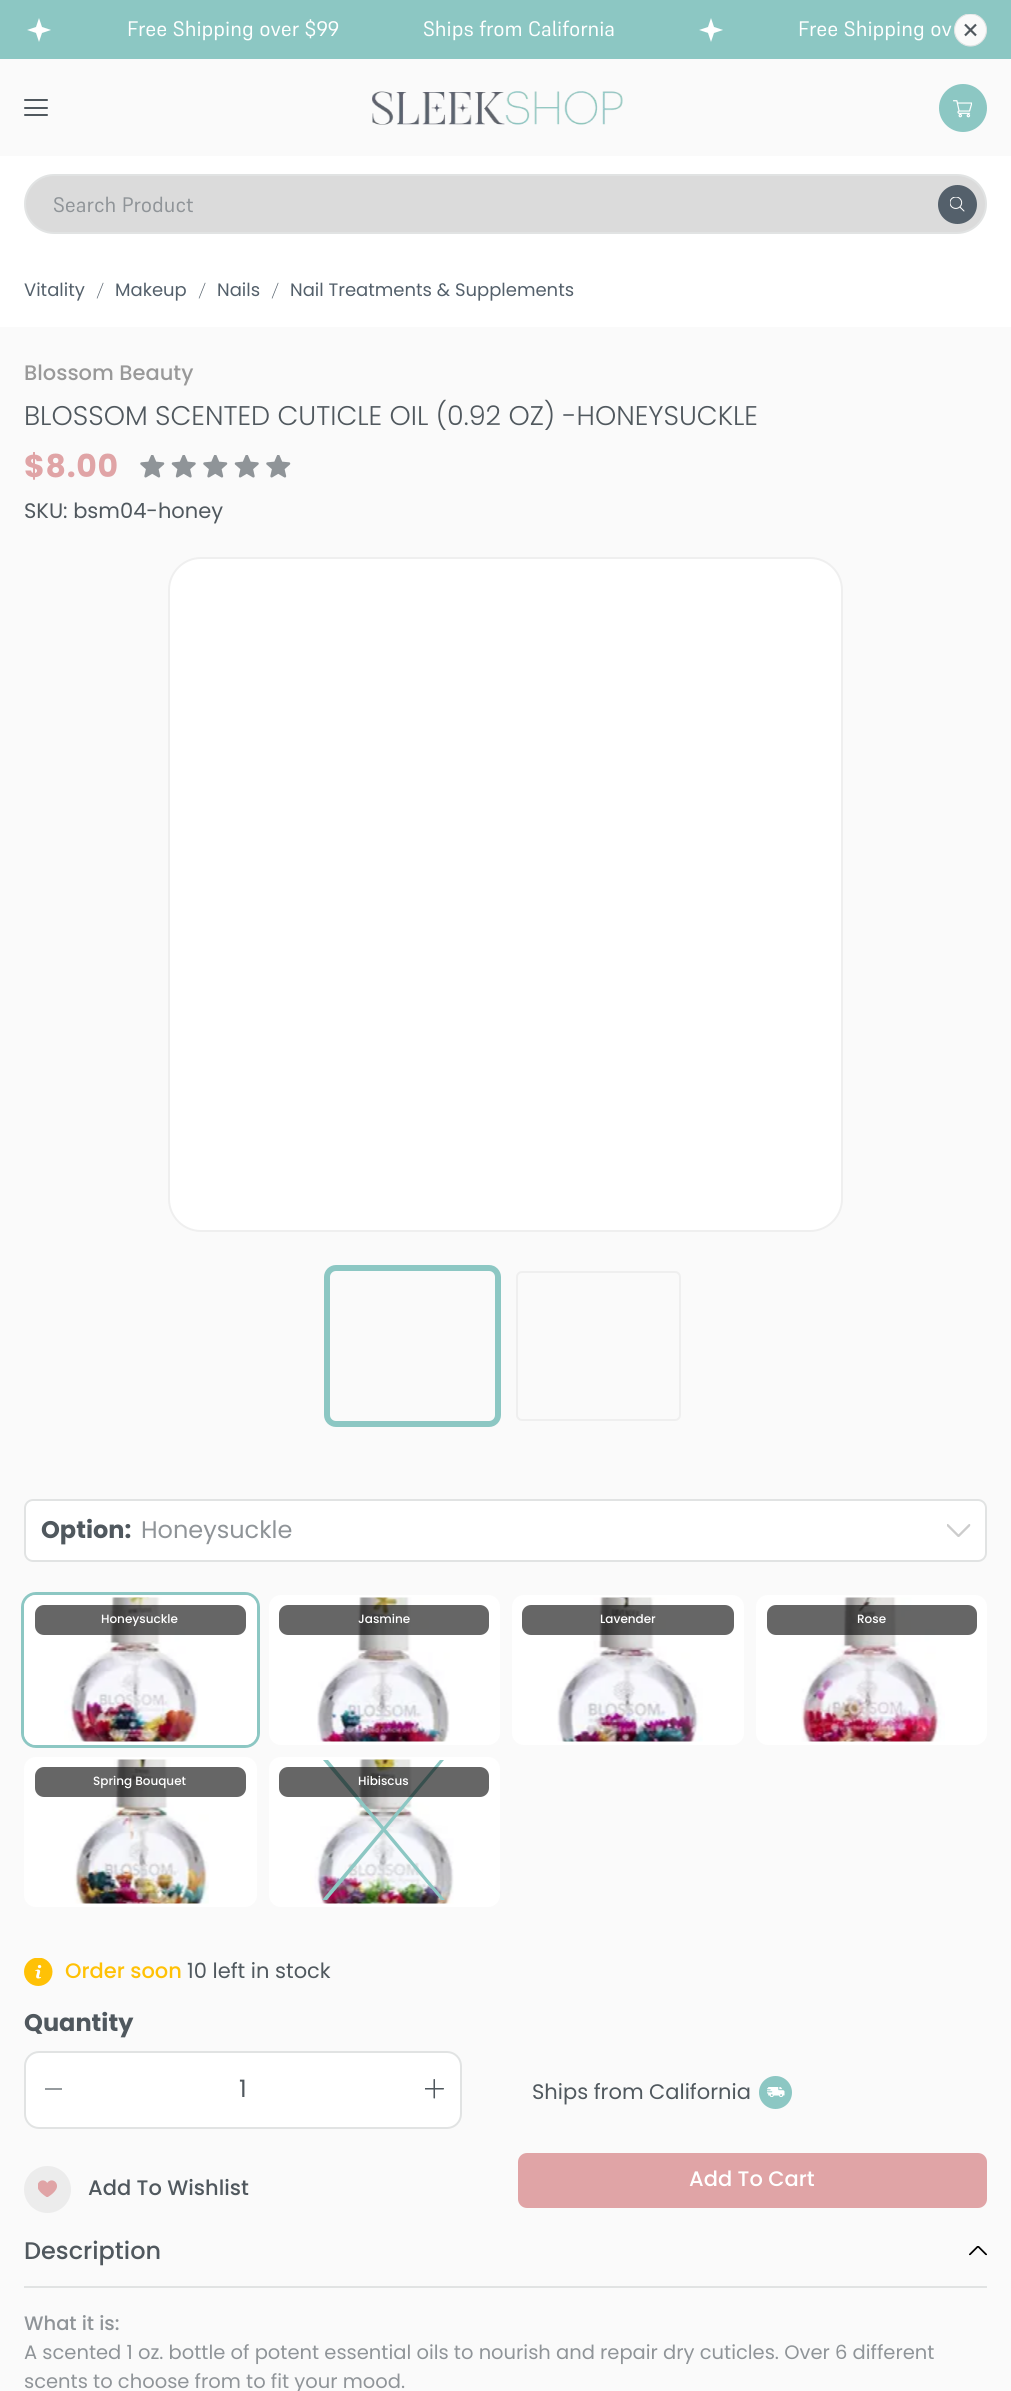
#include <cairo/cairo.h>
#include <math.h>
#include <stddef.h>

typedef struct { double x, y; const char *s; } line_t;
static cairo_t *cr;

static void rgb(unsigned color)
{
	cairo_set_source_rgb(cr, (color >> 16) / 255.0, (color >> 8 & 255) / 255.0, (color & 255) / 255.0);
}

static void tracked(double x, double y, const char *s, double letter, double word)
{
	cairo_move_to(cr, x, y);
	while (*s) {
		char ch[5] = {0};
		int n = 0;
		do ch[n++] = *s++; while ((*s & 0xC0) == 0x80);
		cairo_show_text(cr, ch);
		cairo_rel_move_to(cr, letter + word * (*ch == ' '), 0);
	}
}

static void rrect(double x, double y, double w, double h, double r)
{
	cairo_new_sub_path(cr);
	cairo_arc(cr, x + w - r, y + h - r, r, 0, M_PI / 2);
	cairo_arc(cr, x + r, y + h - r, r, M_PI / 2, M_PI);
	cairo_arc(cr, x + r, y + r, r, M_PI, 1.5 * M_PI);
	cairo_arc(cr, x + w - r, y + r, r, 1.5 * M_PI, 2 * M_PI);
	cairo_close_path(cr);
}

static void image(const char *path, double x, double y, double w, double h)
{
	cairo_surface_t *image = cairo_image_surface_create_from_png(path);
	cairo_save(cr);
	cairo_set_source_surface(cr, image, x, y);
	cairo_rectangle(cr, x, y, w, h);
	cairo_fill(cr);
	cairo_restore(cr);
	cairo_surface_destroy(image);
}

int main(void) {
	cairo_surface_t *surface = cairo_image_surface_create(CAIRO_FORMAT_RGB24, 1011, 2391);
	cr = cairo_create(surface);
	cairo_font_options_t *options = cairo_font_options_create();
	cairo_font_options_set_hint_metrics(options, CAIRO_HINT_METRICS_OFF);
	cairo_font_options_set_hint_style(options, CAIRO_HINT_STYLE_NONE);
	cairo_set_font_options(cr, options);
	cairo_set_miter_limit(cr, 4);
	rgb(0xfafafa);
	cairo_paint(cr);
	rgb(0x8cc7c3);
	cairo_rectangle(cr, 0, 0, 1011, 59);
	cairo_fill(cr);
	rgb(0xffffff);
	cairo_set_fill_rule(cr, CAIRO_FILL_RULE_EVEN_ODD);
	cairo_new_path(cr);
	cairo_move_to(cr, 39, 18);
	cairo_line_to(cr, 42, 27);
	cairo_line_to(cr, 51, 30);
	cairo_line_to(cr, 42, 33);
	cairo_line_to(cr, 39, 42);
	cairo_line_to(cr, 36, 33);
	cairo_line_to(cr, 27, 30);
	cairo_line_to(cr, 36, 27);
	cairo_close_path(cr);
	cairo_fill(cr);
	cairo_new_path(cr);
	cairo_move_to(cr, 711, 18);
	cairo_line_to(cr, 714, 27);
	cairo_line_to(cr, 723, 30);
	cairo_line_to(cr, 714, 33);
	cairo_line_to(cr, 711, 42);
	cairo_line_to(cr, 708, 33);
	cairo_line_to(cr, 699, 30);
	cairo_line_to(cr, 708, 27);
	cairo_close_path(cr);
	cairo_fill(cr);
	rgb(0xfafafa);
	cairo_arc(cr, 970.5, 30, 16, 0, 2 * M_PI);
	cairo_fill(cr);
	cairo_save(cr);
	cairo_set_fill_rule(cr, CAIRO_FILL_RULE_WINDING);
	cairo_rectangle(cr, 954, 14, 33, 33);
	cairo_clip(cr);
	cairo_arc(cr, 970.5, 30, 16, 0, 2 * M_PI);
	rgb(0xe1e3e3);
	cairo_set_line_width(cr, 1.1);
	cairo_stroke(cr);
	cairo_restore(cr);
	cairo_new_path(cr);
	cairo_move_to(cr, 965, 35.5);
	cairo_line_to(cr, 976, 24.5);
	cairo_move_to(cr, 976, 35.5);
	cairo_line_to(cr, 965, 24.5);
	rgb(0x50585e);
	cairo_set_line_width(cr, 2.2);
	cairo_stroke(cr);
	rrect(24, 99, 24, 2, 1);
	cairo_fill(cr);
	rrect(24, 107, 24, 2, 1);
	cairo_fill(cr);
	rrect(24, 114, 24, 2, 1);
	cairo_fill(cr);
	image("img/1.png", 372, 91, 251, 34);
	rgb(0x8cc7c3);
	cairo_arc(cr, 963, 108, 24, 0, 2 * M_PI);
	cairo_fill(cr);
	image("img/2.png", 953, 100, 19, 18);
	rgb(0xffffff);
	cairo_rectangle(cr, 0, 156, 1011, 171);
	cairo_fill(cr);
	rgb(0xdbdbdb);
	rrect(25, 175, 961, 58, 29);
	cairo_fill_preserve(cr);
	rgb(0xe1e3e3);
	cairo_set_line_width(cr, 2);
	cairo_stroke(cr);
	rgb(0x54606b);
	cairo_arc(cr, 957.5, 204.5, 19.5, 0, 2 * M_PI);
	cairo_fill(cr);
	image("img/3.png", 950, 197, 15, 15);
	image("img/4.png", 140, 455, 25, 23);
	image("img/5.png", 171, 455, 25, 23);
	image("img/4.png", 203, 455, 25, 23);
	image("img/5.png", 234, 455, 25, 23);
	image("img/4.png", 266, 455, 25, 23);
	rgb(0xffffff);
	rrect(169, 558, 673, 673, 32);
	cairo_fill_preserve(cr);
	rgb(0xefefef);
	cairo_stroke(cr);
	rrect(327, 1268, 171, 156, 9);
	rgb(0x8cc7c3);
	cairo_set_line_width(cr, 6);
	cairo_stroke(cr);
	rrect(517, 1272, 163, 148, 5);
	rgb(0xefefef);
	cairo_set_line_width(cr, 2);
	cairo_stroke(cr);
	rgb(0xffffff);
	rrect(24, 1499, 963, 63, 9);
	cairo_fill(cr);
	image("img/6.png", 947, 1524, 24, 13);
	rrect(25, 1500, 961, 61, 8);
	rgb(0xe1e3e3);
	cairo_stroke(cr);
	rrect(22.5, 1593.5, 236, 153, 13.5);
	rgb(0x8cc7c3);
	cairo_set_line_width(cr, 3);
	cairo_stroke(cr);
	rgb(0xffffff);
	rrect(24, 1595, 233, 150, 12);
	cairo_fill(cr);
	image("img/7.png", 64, 1597, 134, 145);
	cairo_set_source_rgba(cr, 0, 0, 0, 0.6);
	rrect(35, 1605, 211, 30, 9);
	cairo_fill(cr);
	rgb(0xffffff);
	rrect(269, 1595, 231, 150, 12);
	cairo_fill(cr);
	image("img/8.png", 317, 1597, 133, 145);
	cairo_set_source_rgba(cr, 0, 0, 0, 0.6);
	rrect(279, 1605, 210, 30, 9);
	cairo_fill(cr);
	rgb(0xffffff);
	rrect(512, 1595, 232, 150, 12);
	cairo_fill(cr);
	image("img/9.png", 557, 1597, 146, 145);
	cairo_set_source_rgba(cr, 0, 0, 0, 0.6);
	rrect(522, 1605, 212, 30, 9);
	cairo_fill(cr);
	rgb(0xffffff);
	rrect(756, 1595, 231, 150, 12);
	cairo_fill(cr);
	image("img/10.png", 801, 1597, 144, 145);
	cairo_set_source_rgba(cr, 0, 0, 0, 0.6);
	rrect(767, 1605, 210, 30, 9);
	cairo_fill(cr);
	rgb(0xffffff);
	rrect(24, 1757, 233, 150, 12);
	cairo_fill(cr);
	image("img/11.png", 74, 1759, 135, 145);
	cairo_set_source_rgba(cr, 0, 0, 0, 0.6);
	rrect(35, 1767, 211, 30, 9);
	cairo_fill(cr);
	rgb(0xffffff);
	rrect(269, 1757, 231, 150, 12);
	cairo_fill(cr);
	image("img/12.png", 310, 1759, 144, 145);
	rgb(0x8cc7c3);
	cairo_set_fill_rule(cr, CAIRO_FILL_RULE_WINDING);
	cairo_new_path(cr);
	cairo_move_to(cr, 328, 1760);
	cairo_line_to(cr, 445, 1900);
	cairo_line_to(cr, 441, 1900);
	cairo_line_to(cr, 323, 1760);
	cairo_close_path(cr);
	cairo_fill(cr);
	cairo_new_path(cr);
	cairo_move_to(cr, 444, 1760);
	cairo_line_to(cr, 327, 1900);
	cairo_line_to(cr, 322, 1900);
	cairo_line_to(cr, 440, 1760);
	cairo_close_path(cr);
	cairo_fill(cr);
	cairo_set_source_rgba(cr, 0, 0, 0, 0.6);
	rrect(279, 1767, 210, 30, 9);
	cairo_fill(cr);
	image("img/13.png", 24, 1958, 29, 28);
	rgb(0xffffff);
	rrect(25, 2052, 436, 76, 14);
	cairo_fill_preserve(cr);
	rgb(0xe1e3e3);
	cairo_set_line_width(cr, 2);
	cairo_stroke(cr);
	rgb(0x969b9e);
	cairo_rectangle(cr, 45, 2088, 17, 2);
	cairo_fill(cr);
	image("img/14.png", 425, 2079, 19, 20);
	rgb(0x8cc7c3);
	cairo_arc(cr, 775.5, 2092.5, 16.5, 0, 2 * M_PI);
	cairo_fill(cr);
	image("img/15.png", 767, 2087, 18, 10);
	rgb(0xececec);
	cairo_arc(cr, 47.5, 2189.5, 23.5, 0, 2 * M_PI);
	cairo_fill(cr);
	image("img/16.png", 38, 2180, 19, 17);
	rgb(0xe0a4a6);
	rrect(519, 2154, 467, 53, 8);
	cairo_fill_preserve(cr);
	cairo_stroke(cr);
	rgb(0xe1e3e3);
	cairo_rectangle(cr, 24, 2286, 963, 2);
	cairo_fill(cr);
	image("img/17.png", 969, 2246, 18, 10);
	cairo_select_font_face(cr, "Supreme", CAIRO_FONT_SLANT_NORMAL, CAIRO_FONT_WEIGHT_NORMAL);
	cairo_set_font_size(cr, 21);
	rgb(0xffffff);
	{
		static const line_t items[] = {
			{127, 36, "Free Shipping over $99"},
			{423, 36, "Ships from California"},
			{798, 36, "Free Shipping ov"},
		};
		for (size_t i = 0; i < sizeof items / sizeof *items; i++) {
			cairo_move_to(cr, items[i].x, items[i].y);
			cairo_show_text(cr, items[i].s);
		}
	}
	rgb(0x8f9498);
	cairo_move_to(cr, 53, 212);
	cairo_show_text(cr, "Search Product");
	cairo_select_font_face(cr, "Poppins", CAIRO_FONT_SLANT_NORMAL, CAIRO_FONT_WEIGHT_NORMAL);
	cairo_set_font_size(cr, 18);
	rgb(0x54606b);
	cairo_move_to(cr, 24, 296);
	cairo_show_text(cr, "Vitality");
	cairo_select_font_face(cr, "Inria Serif", CAIRO_FONT_SLANT_NORMAL, CAIRO_FONT_WEIGHT_NORMAL);
	cairo_move_to(cr, 97, 296);
	cairo_show_text(cr, "/");
	cairo_select_font_face(cr, "Poppins", CAIRO_FONT_SLANT_NORMAL, CAIRO_FONT_WEIGHT_NORMAL);
	cairo_move_to(cr, 115, 296);
	cairo_show_text(cr, "Makeup");
	cairo_select_font_face(cr, "Inria Serif", CAIRO_FONT_SLANT_NORMAL, CAIRO_FONT_WEIGHT_NORMAL);
	cairo_move_to(cr, 199, 296);
	cairo_show_text(cr, "/");
	cairo_select_font_face(cr, "Poppins", CAIRO_FONT_SLANT_NORMAL, CAIRO_FONT_WEIGHT_NORMAL);
	cairo_move_to(cr, 217, 296);
	cairo_show_text(cr, "Nails");
	cairo_select_font_face(cr, "Inria Serif", CAIRO_FONT_SLANT_NORMAL, CAIRO_FONT_WEIGHT_NORMAL);
	cairo_move_to(cr, 272, 296);
	cairo_show_text(cr, "/");
	cairo_select_font_face(cr, "Poppins", CAIRO_FONT_SLANT_NORMAL, CAIRO_FONT_WEIGHT_NORMAL);
	cairo_move_to(cr, 290, 296);
	cairo_show_text(cr, "Nail Treatments & Supplements");
	cairo_select_font_face(cr, "Poppins Medium", CAIRO_FONT_SLANT_NORMAL, CAIRO_FONT_WEIGHT_NORMAL);
	cairo_set_font_size(cr, 21);
	rgb(0x999999);
	cairo_move_to(cr, 24, 380);
	cairo_show_text(cr, "Blossom Beauty");
	cairo_select_font_face(cr, "Poppins Light", CAIRO_FONT_SLANT_NORMAL, CAIRO_FONT_WEIGHT_NORMAL);
	cairo_set_font_size(cr, 27);
	rgb(0x50585e);
	cairo_move_to(cr, 24, 425);
	cairo_show_text(cr, "BLOSSOM SCENTED CUTICLE OIL (0.92 OZ) -HONEYSUCKLE");
	cairo_select_font_face(cr, "Poppins", CAIRO_FONT_SLANT_NORMAL, CAIRO_FONT_WEIGHT_BOLD);
	cairo_set_font_size(cr, 31.5);
	rgb(0xe0a4a6);
	tracked(24, 477, "$8.00", 0.75, 0);
	cairo_select_font_face(cr, "Poppins", CAIRO_FONT_SLANT_NORMAL, CAIRO_FONT_WEIGHT_NORMAL);
	cairo_set_font_size(cr, 21);
	rgb(0x50585e);
	cairo_move_to(cr, 24, 518);
	cairo_show_text(cr, "SKU: bsm04-honey");
	cairo_select_font_face(cr, "Poppins", CAIRO_FONT_SLANT_NORMAL, CAIRO_FONT_WEIGHT_BOLD);
	cairo_set_font_size(cr, 24);
	cairo_move_to(cr, 41, 1538);
	cairo_show_text(cr, "Option:");
	cairo_select_font_face(cr, "Poppins", CAIRO_FONT_SLANT_NORMAL, CAIRO_FONT_WEIGHT_NORMAL);
	rgb(0x8f9498);
	cairo_move_to(cr, 141, 1538);
	cairo_show_text(cr, "Honeysuckle");
	cairo_select_font_face(cr, "Poppins Medium", CAIRO_FONT_SLANT_NORMAL, CAIRO_FONT_WEIGHT_NORMAL);
	cairo_set_font_size(cr, 12);
	rgb(0xffffff);
	{
		static const line_t items[] = {
			{101, 1623, "Honeysuckle"},
			{358, 1623, "Jasmine"},
			{600, 1623, "Lavender"},
			{857, 1623, "Rose"},
			{93, 1785, "Spring Bouquet"},
			{358, 1785, "Hibiscus"},
		};
		for (size_t i = 0; i < sizeof items / sizeof *items; i++) {
			cairo_move_to(cr, items[i].x, items[i].y);
			cairo_show_text(cr, items[i].s);
		}
	}
	cairo_set_font_size(cr, 21);
	rgb(0xffc106);
	cairo_move_to(cr, 65, 1978);
	cairo_show_text(cr, "Order soon");
	cairo_select_font_face(cr, "Poppins", CAIRO_FONT_SLANT_NORMAL, CAIRO_FONT_WEIGHT_NORMAL);
	rgb(0x50585e);
	cairo_move_to(cr, 187, 1978);
	cairo_show_text(cr, "10 left in stock");
	cairo_select_font_face(cr, "Poppins", CAIRO_FONT_SLANT_NORMAL, CAIRO_FONT_WEIGHT_BOLD);
	cairo_set_font_size(cr, 24);
	cairo_move_to(cr, 24, 2031);
	cairo_show_text(cr, "Quantity");
	cairo_select_font_face(cr, "Poppins", CAIRO_FONT_SLANT_NORMAL, CAIRO_FONT_WEIGHT_NORMAL);
	cairo_move_to(cr, 239, 2097);
	cairo_show_text(cr, "1");
	cairo_set_font_size(cr, 21);
	cairo_move_to(cr, 532, 2099);
	cairo_show_text(cr, "Ships from California");
	cairo_select_font_face(cr, "Poppins Medium", CAIRO_FONT_SLANT_NORMAL, CAIRO_FONT_WEIGHT_NORMAL);
	cairo_move_to(cr, 88, 2195);
	cairo_show_text(cr, "Add To Wishlist");
	rgb(0xffffff);
	cairo_move_to(cr, 689, 2186);
	cairo_show_text(cr, "Add To Cart");
	cairo_set_font_size(cr, 24);
	rgb(0x50585e);
	cairo_move_to(cr, 24, 2259);
	cairo_show_text(cr, "Description");
	cairo_set_font_size(cr, 19.5);
	rgb(0x8f9498);
	cairo_move_to(cr, 24, 2330);
	cairo_show_text(cr, "What it is:");
	cairo_select_font_face(cr, "Poppins", CAIRO_FONT_SLANT_NORMAL, CAIRO_FONT_WEIGHT_NORMAL);
	cairo_move_to(cr, 24, 2359);
	cairo_show_text(cr, "A scented 1 oz. bottle of potent essential oils to nourish and repair dry cuticles. Over 6 different");
	cairo_move_to(cr, 24, 2388);
	cairo_show_text(cr, "scents to choose from to fit your mood.");
	cairo_surface_write_to_png(surface, "page.png");
	cairo_font_options_destroy(options);
	cairo_destroy(cr);
	cairo_surface_destroy(surface);
	return 0;
}
